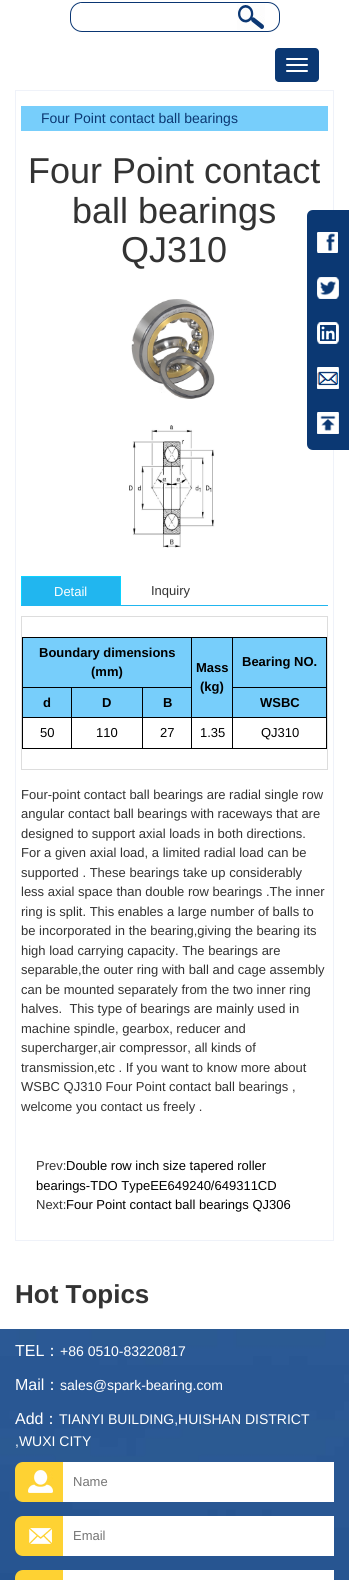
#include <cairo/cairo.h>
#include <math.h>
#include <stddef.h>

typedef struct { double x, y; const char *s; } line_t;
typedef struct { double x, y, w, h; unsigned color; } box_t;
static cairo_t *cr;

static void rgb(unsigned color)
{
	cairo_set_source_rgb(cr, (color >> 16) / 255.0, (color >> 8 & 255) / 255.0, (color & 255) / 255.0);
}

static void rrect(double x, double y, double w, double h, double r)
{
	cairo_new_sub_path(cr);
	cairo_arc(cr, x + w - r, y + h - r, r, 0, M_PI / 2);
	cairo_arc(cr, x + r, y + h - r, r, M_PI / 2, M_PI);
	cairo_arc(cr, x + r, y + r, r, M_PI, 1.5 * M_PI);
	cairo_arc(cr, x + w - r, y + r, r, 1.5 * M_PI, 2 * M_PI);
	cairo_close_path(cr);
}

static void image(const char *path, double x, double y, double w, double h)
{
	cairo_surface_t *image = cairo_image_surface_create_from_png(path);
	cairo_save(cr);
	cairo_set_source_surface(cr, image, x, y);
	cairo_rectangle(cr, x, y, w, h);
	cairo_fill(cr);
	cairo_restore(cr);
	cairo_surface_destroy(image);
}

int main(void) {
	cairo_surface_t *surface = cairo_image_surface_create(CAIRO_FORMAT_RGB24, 349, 1580);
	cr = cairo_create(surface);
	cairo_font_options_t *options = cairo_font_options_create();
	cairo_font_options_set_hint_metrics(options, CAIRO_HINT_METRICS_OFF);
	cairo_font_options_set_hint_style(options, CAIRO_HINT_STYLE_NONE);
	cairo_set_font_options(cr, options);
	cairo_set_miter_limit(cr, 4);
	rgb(0xffffff);
	cairo_paint(cr);
	rrect(70.5, 2.5, 209, 29, 11.5);
	rgb(0x0a3673);
	cairo_set_line_width(cr, 1);
	cairo_stroke(cr);
	rgb(0xffffff);
	cairo_rectangle(cr, 80, 3, 2, 1);
	cairo_fill(cr);
	image("img/1.png", 237, 4, 28, 26);
	rgb(0x0b3873);
	rrect(275, 48, 44, 34, 4);
	cairo_fill(cr);
	rgb(0xffffff);
	rrect(286, 58, 22, 2, 1);
	cairo_fill(cr);
	rrect(286, 64, 22, 2, 1);
	cairo_fill(cr);
	rrect(286, 70, 22, 2, 1);
	cairo_fill(cr);
	cairo_rectangle(cr, 15.5, 90.5, 318, 1150);
	rgb(0xeff2f9);
	cairo_stroke(cr);
	rgb(0x77cefb);
	cairo_rectangle(cr, 21, 106, 307, 25);
	cairo_fill(cr);
	image("img/2.png", 131, 299, 84, 100);
	image("img/3.png", 129, 425, 86, 123);
	rgb(0x21b6ef);
	cairo_rectangle(cr, 21, 605, 307, 1);
	cairo_fill(cr);
	cairo_rectangle(cr, 22, 577, 98, 28);
	cairo_fill(cr);
	rgb(0x0b3873);
	cairo_new_path(cr);
	cairo_move_to(cr, 313, 210);
	cairo_line_to(cr, 349, 210);
	cairo_line_to(cr, 349, 450);
	cairo_line_to(cr, 313, 450);
	cairo_curve_to(cr, 309.5, 450, 307, 447.5, 307, 444);
	cairo_line_to(cr, 307, 216);
	cairo_curve_to(cr, 307, 212.5, 309.5, 210, 313, 210);
	cairo_close_path(cr);
	cairo_fill(cr);
	image("img/4.png", 317, 232, 21, 21);
	image("img/5.png", 317, 277, 22, 22);
	image("img/6.png", 317, 322, 22, 22);
	image("img/7.png", 317, 367, 22, 22);
	image("img/8.png", 317, 412, 22, 22);
	image("img/9.png", 0, 1329, 349, 251);
	rgb(0xfed233);
	cairo_new_path(cr);
	cairo_move_to(cr, 23, 1462);
	cairo_line_to(cr, 63, 1462);
	cairo_line_to(cr, 63, 1502);
	cairo_line_to(cr, 23, 1502);
	cairo_curve_to(cr, 18.5, 1502, 15, 1498.5, 15, 1494);
	cairo_line_to(cr, 15, 1470);
	cairo_curve_to(cr, 15, 1465.5, 18.5, 1462, 23, 1462);
	cairo_close_path(cr);
	cairo_fill(cr);
	image("img/10.png", 28, 1470, 25, 23);
	rgb(0xffffff);
	cairo_rectangle(cr, 63, 1462, 271, 40);
	cairo_fill(cr);
	rgb(0xfed233);
	cairo_new_path(cr);
	cairo_move_to(cr, 23, 1516);
	cairo_line_to(cr, 63, 1516);
	cairo_line_to(cr, 63, 1556);
	cairo_line_to(cr, 23, 1556);
	cairo_curve_to(cr, 18.5, 1556, 15, 1552.5, 15, 1548);
	cairo_line_to(cr, 15, 1524);
	cairo_curve_to(cr, 15, 1519.5, 18.5, 1516, 23, 1516);
	cairo_close_path(cr);
	cairo_fill(cr);
	image("img/11.png", 29, 1528, 23, 16);
	rgb(0xffffff);
	cairo_rectangle(cr, 63, 1516, 271, 40);
	cairo_fill(cr);
	rgb(0xfed233);
	cairo_new_path(cr);
	cairo_move_to(cr, 23, 1570);
	cairo_line_to(cr, 63, 1570);
	cairo_line_to(cr, 63, 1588);
	cairo_line_to(cr, 23, 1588);
	cairo_curve_to(cr, 18.5, 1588, 15, 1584.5, 15, 1580);
	cairo_line_to(cr, 15, 1578);
	cairo_curve_to(cr, 15, 1573.5, 18.5, 1570, 23, 1570);
	cairo_close_path(cr);
	cairo_fill(cr);
	rgb(0xffffff);
	cairo_rectangle(cr, 63, 1570, 271, 10);
	cairo_fill(cr);
	cairo_select_font_face(cr, "Liberation Sans", CAIRO_FONT_SLANT_NORMAL, CAIRO_FONT_WEIGHT_NORMAL);
	cairo_set_font_size(cr, 14);
	rgb(0x0b3873);
	cairo_move_to(cr, 41, 123);
	cairo_show_text(cr, "Four Point contact ball bearings");
	cairo_set_font_size(cr, 36);
	rgb(0x333333);
	{
		static const line_t items[] = {
			{28, 183, "Four Point contact"},
			{72, 223, "ball bearings"},
			{121, 262, "QJ310"},
		};
		for (size_t i = 0; i < sizeof items / sizeof *items; i++) {
			cairo_move_to(cr, items[i].x, items[i].y);
			cairo_show_text(cr, items[i].s);
		}
	}
	cairo_set_font_size(cr, 13);
	{
		static const line_t items[] = {
			{151, 595, "Inquiry"},
			{21, 799, "Four-point contact ball bearings are radial single row"},
			{21, 818, "angular contact ball bearings with raceways that are"},
			{21, 838, "designed to support axial loads in both directions."},
			{21, 857, "For a given axial load, a limited radial load can be"},
			{21, 877, "supported . These bearings take up considerably"},
			{21, 896, "less axial space than double row bearings .The inner"},
			{21, 916, "ring is split. This enables a large number of balls to"},
			{21, 935, "be incorporated in the bearing,giving the bearing its"},
		};
		for (size_t i = 0; i < sizeof items / sizeof *items; i++) {
			cairo_move_to(cr, items[i].x, items[i].y);
			cairo_show_text(cr, items[i].s);
		}
	}
	cairo_save(cr);
	cairo_rectangle(cr, 21, 576, 307, 29);
	cairo_clip(cr);
	cairo_rectangle(cr, 21.5, 576.5, 99, 349);
	rgb(0x0bd2ff);
	cairo_stroke(cr);
	cairo_restore(cr);
	cairo_rectangle(cr, 21.5, 616.5, 306, 153);
	rgb(0xdddddd);
	cairo_stroke(cr);
	rgb(0x000000);
	{
		static const line_t items[] = {
			{261, 737, "QJ310"},
			{200, 737, "1.35"},
			{160, 737, "27"},
			{96, 737, "110"},
			{40, 737, "50"},
		};
		for (size_t i = 0; i < sizeof items / sizeof *items; i++) {
			cairo_move_to(cr, items[i].x, items[i].y);
			cairo_show_text(cr, items[i].s);
		}
	}
	rgb(0x77cefb);
	cairo_rectangle(cr, 233, 688, 93, 29);
	cairo_fill(cr);
	cairo_select_font_face(cr, "Liberation Sans", CAIRO_FONT_SLANT_NORMAL, CAIRO_FONT_WEIGHT_BOLD);
	rgb(0x000000);
	cairo_move_to(cr, 260, 707);
	cairo_show_text(cr, "WSBC");
	rgb(0x77cefb);
	cairo_rectangle(cr, 143, 688, 48, 29);
	cairo_fill(cr);
	rgb(0x000000);
	cairo_move_to(cr, 163, 707);
	cairo_show_text(cr, "B");
	rgb(0x77cefb);
	cairo_rectangle(cr, 72, 688, 70, 29);
	cairo_fill(cr);
	rgb(0x000000);
	cairo_move_to(cr, 102, 707);
	cairo_show_text(cr, "D");
	rgb(0x77cefb);
	cairo_rectangle(cr, 23, 688, 48, 29);
	cairo_fill(cr);
	rgb(0x000000);
	cairo_move_to(cr, 43, 707);
	cairo_show_text(cr, "d");
	rgb(0x77cefb);
	cairo_rectangle(cr, 233, 638, 93, 49);
	cairo_fill(cr);
	rgb(0x000000);
	cairo_move_to(cr, 242, 666);
	cairo_show_text(cr, "Bearing NO.");
	rgb(0x77cefb);
	cairo_rectangle(cr, 192, 638, 40, 79);
	cairo_fill(cr);
	rgb(0x000000);
	cairo_move_to(cr, 200, 691);
	cairo_show_text(cr, "(kg)");
	cairo_move_to(cr, 196, 672);
	cairo_show_text(cr, "Mass");
	rgb(0x77cefb);
	cairo_rectangle(cr, 23, 638, 168, 49);
	cairo_fill(cr);
	rgb(0x000000);
	cairo_move_to(cr, 91, 676);
	cairo_show_text(cr, "(mm)");
	cairo_move_to(cr, 39, 657);
	cairo_show_text(cr, "Boundary dimensions");
	{
		static const box_t items[] = {
			{326, 637, 1, 112, 0x000000},
			{232, 637, 95, 1, 0x000000},
			{232, 687, 95, 1, 0x000000},
			{232, 717, 95, 1, 0x000000},
			{22, 748, 305, 1, 0x000000},
			{232, 717, 1, 32, 0x000000},
			{191, 717, 42, 1, 0x000000},
			{232, 687, 1, 31, 0x000000},
			{232, 637, 1, 51, 0x000000},
			{191, 637, 42, 1, 0x000000},
			{142, 687, 50, 1, 0x000000},
			{191, 717, 1, 32, 0x000000},
			{142, 717, 50, 1, 0x000000},
			{191, 637, 1, 81, 0x000000},
			{22, 637, 170, 1, 0x000000},
			{142, 717, 1, 32, 0x000000},
			{71, 717, 72, 1, 0x000000},
			{142, 687, 1, 31, 0x000000},
			{71, 687, 72, 1, 0x000000},
			{71, 717, 1, 32, 0x000000},
			{22, 717, 50, 1, 0x000000},
			{71, 687, 1, 31, 0x000000},
			{22, 687, 50, 1, 0x000000},
			{22, 717, 1, 32, 0x000000},
			{22, 687, 1, 31, 0x000000},
			{22, 637, 1, 51, 0x000000},
		};
		for (size_t i = 0; i < sizeof items / sizeof *items; i++) {
			rgb(items[i].color);
			cairo_rectangle(cr, items[i].x, items[i].y, items[i].w, items[i].h);
			cairo_fill(cr);
		}
	}
	cairo_select_font_face(cr, "Liberation Sans", CAIRO_FONT_SLANT_NORMAL, CAIRO_FONT_WEIGHT_NORMAL);
	rgb(0xffffff);
	cairo_move_to(cr, 54, 596);
	cairo_show_text(cr, "Detail");
	rgb(0x333333);
	{
		static const line_t items[] = {
			{21, 955, "high load carrying capacity. The bearings are"},
			{21, 974, "separable,the outer ring with ball and cage assembly"},
			{21, 994, "can be mounted separately from the two inner ring"},
			{21, 1013, "halves.  This type of bearings are mainly used in"},
			{21, 1033, "machine spindle, gearbox, reducer and"},
			{21, 1052, "supercharger,air compressor, all kinds of"},
			{21, 1072, "transmission,etc . If you want to know more about"},
			{21, 1091, "WSBC QJ310 Four Point contact ball bearings ,"},
			{21, 1111, "welcome you contact us freely ."},
			{36, 1170, "Prev:"},
		};
		for (size_t i = 0; i < sizeof items / sizeof *items; i++) {
			cairo_move_to(cr, items[i].x, items[i].y);
			cairo_show_text(cr, items[i].s);
		}
	}
	rgb(0x000000);
	cairo_move_to(cr, 66, 1170);
	cairo_show_text(cr, "Double row inch size tapered roller");
	cairo_move_to(cr, 36, 1190);
	cairo_show_text(cr, "bearings-TDO TypeEE649240/649311CD");
	rgb(0x333333);
	cairo_move_to(cr, 36, 1209);
	cairo_show_text(cr, "Next:");
	rgb(0x000000);
	cairo_move_to(cr, 66, 1209);
	cairo_show_text(cr, "Four Point contact ball bearings QJ306");
	cairo_select_font_face(cr, "Liberation Sans", CAIRO_FONT_SLANT_NORMAL, CAIRO_FONT_WEIGHT_BOLD);
	cairo_set_font_size(cr, 26);
	rgb(0x333333);
	cairo_move_to(cr, 15, 1303);
	cairo_show_text(cr, "Hot Topics");
	cairo_select_font_face(cr, "Liberation Sans", CAIRO_FONT_SLANT_NORMAL, CAIRO_FONT_WEIGHT_NORMAL);
	cairo_set_font_size(cr, 16);
	rgb(0xffffff);
	cairo_move_to(cr, 15, 1356);
	cairo_show_text(cr, "TEL");
	cairo_select_font_face(cr, "WenQuanYi Zen Hei Medium", CAIRO_FONT_SLANT_NORMAL, CAIRO_FONT_WEIGHT_NORMAL);
	cairo_move_to(cr, 44, 1356);
	cairo_show_text(cr, "：");
	cairo_select_font_face(cr, "Liberation Sans", CAIRO_FONT_SLANT_NORMAL, CAIRO_FONT_WEIGHT_NORMAL);
	cairo_set_font_size(cr, 14);
	cairo_move_to(cr, 60, 1356);
	cairo_show_text(cr, "+86 0510-83220817");
	cairo_set_font_size(cr, 16);
	cairo_move_to(cr, 15, 1390);
	cairo_show_text(cr, "Mail");
	cairo_select_font_face(cr, "WenQuanYi Zen Hei Medium", CAIRO_FONT_SLANT_NORMAL, CAIRO_FONT_WEIGHT_NORMAL);
	cairo_move_to(cr, 44, 1390);
	cairo_show_text(cr, "：");
	cairo_select_font_face(cr, "Liberation Sans", CAIRO_FONT_SLANT_NORMAL, CAIRO_FONT_WEIGHT_NORMAL);
	cairo_set_font_size(cr, 14);
	cairo_move_to(cr, 60, 1390);
	cairo_show_text(cr, "sales@spark-bearing.com");
	cairo_set_font_size(cr, 16);
	cairo_move_to(cr, 15, 1424);
	cairo_show_text(cr, "Add");
	cairo_select_font_face(cr, "WenQuanYi Zen Hei Medium", CAIRO_FONT_SLANT_NORMAL, CAIRO_FONT_WEIGHT_NORMAL);
	cairo_move_to(cr, 43, 1424);
	cairo_show_text(cr, "：");
	cairo_select_font_face(cr, "Liberation Sans", CAIRO_FONT_SLANT_NORMAL, CAIRO_FONT_WEIGHT_NORMAL);
	cairo_set_font_size(cr, 14);
	cairo_move_to(cr, 59, 1424);
	cairo_show_text(cr, "TIANYI BUILDING,HUISHAN DISTRICT");
	cairo_move_to(cr, 15, 1446);
	cairo_show_text(cr, ",WUXI CITY");
	cairo_set_font_size(cr, 13);
	rgb(0x757575);
	cairo_move_to(cr, 73, 1486);
	cairo_show_text(cr, "Name");
	cairo_move_to(cr, 73, 1540);
	cairo_show_text(cr, "Email");
	cairo_surface_write_to_png(surface, "page.png");
	cairo_font_options_destroy(options);
	cairo_destroy(cr);
	cairo_surface_destroy(surface);
	return 0;
}
